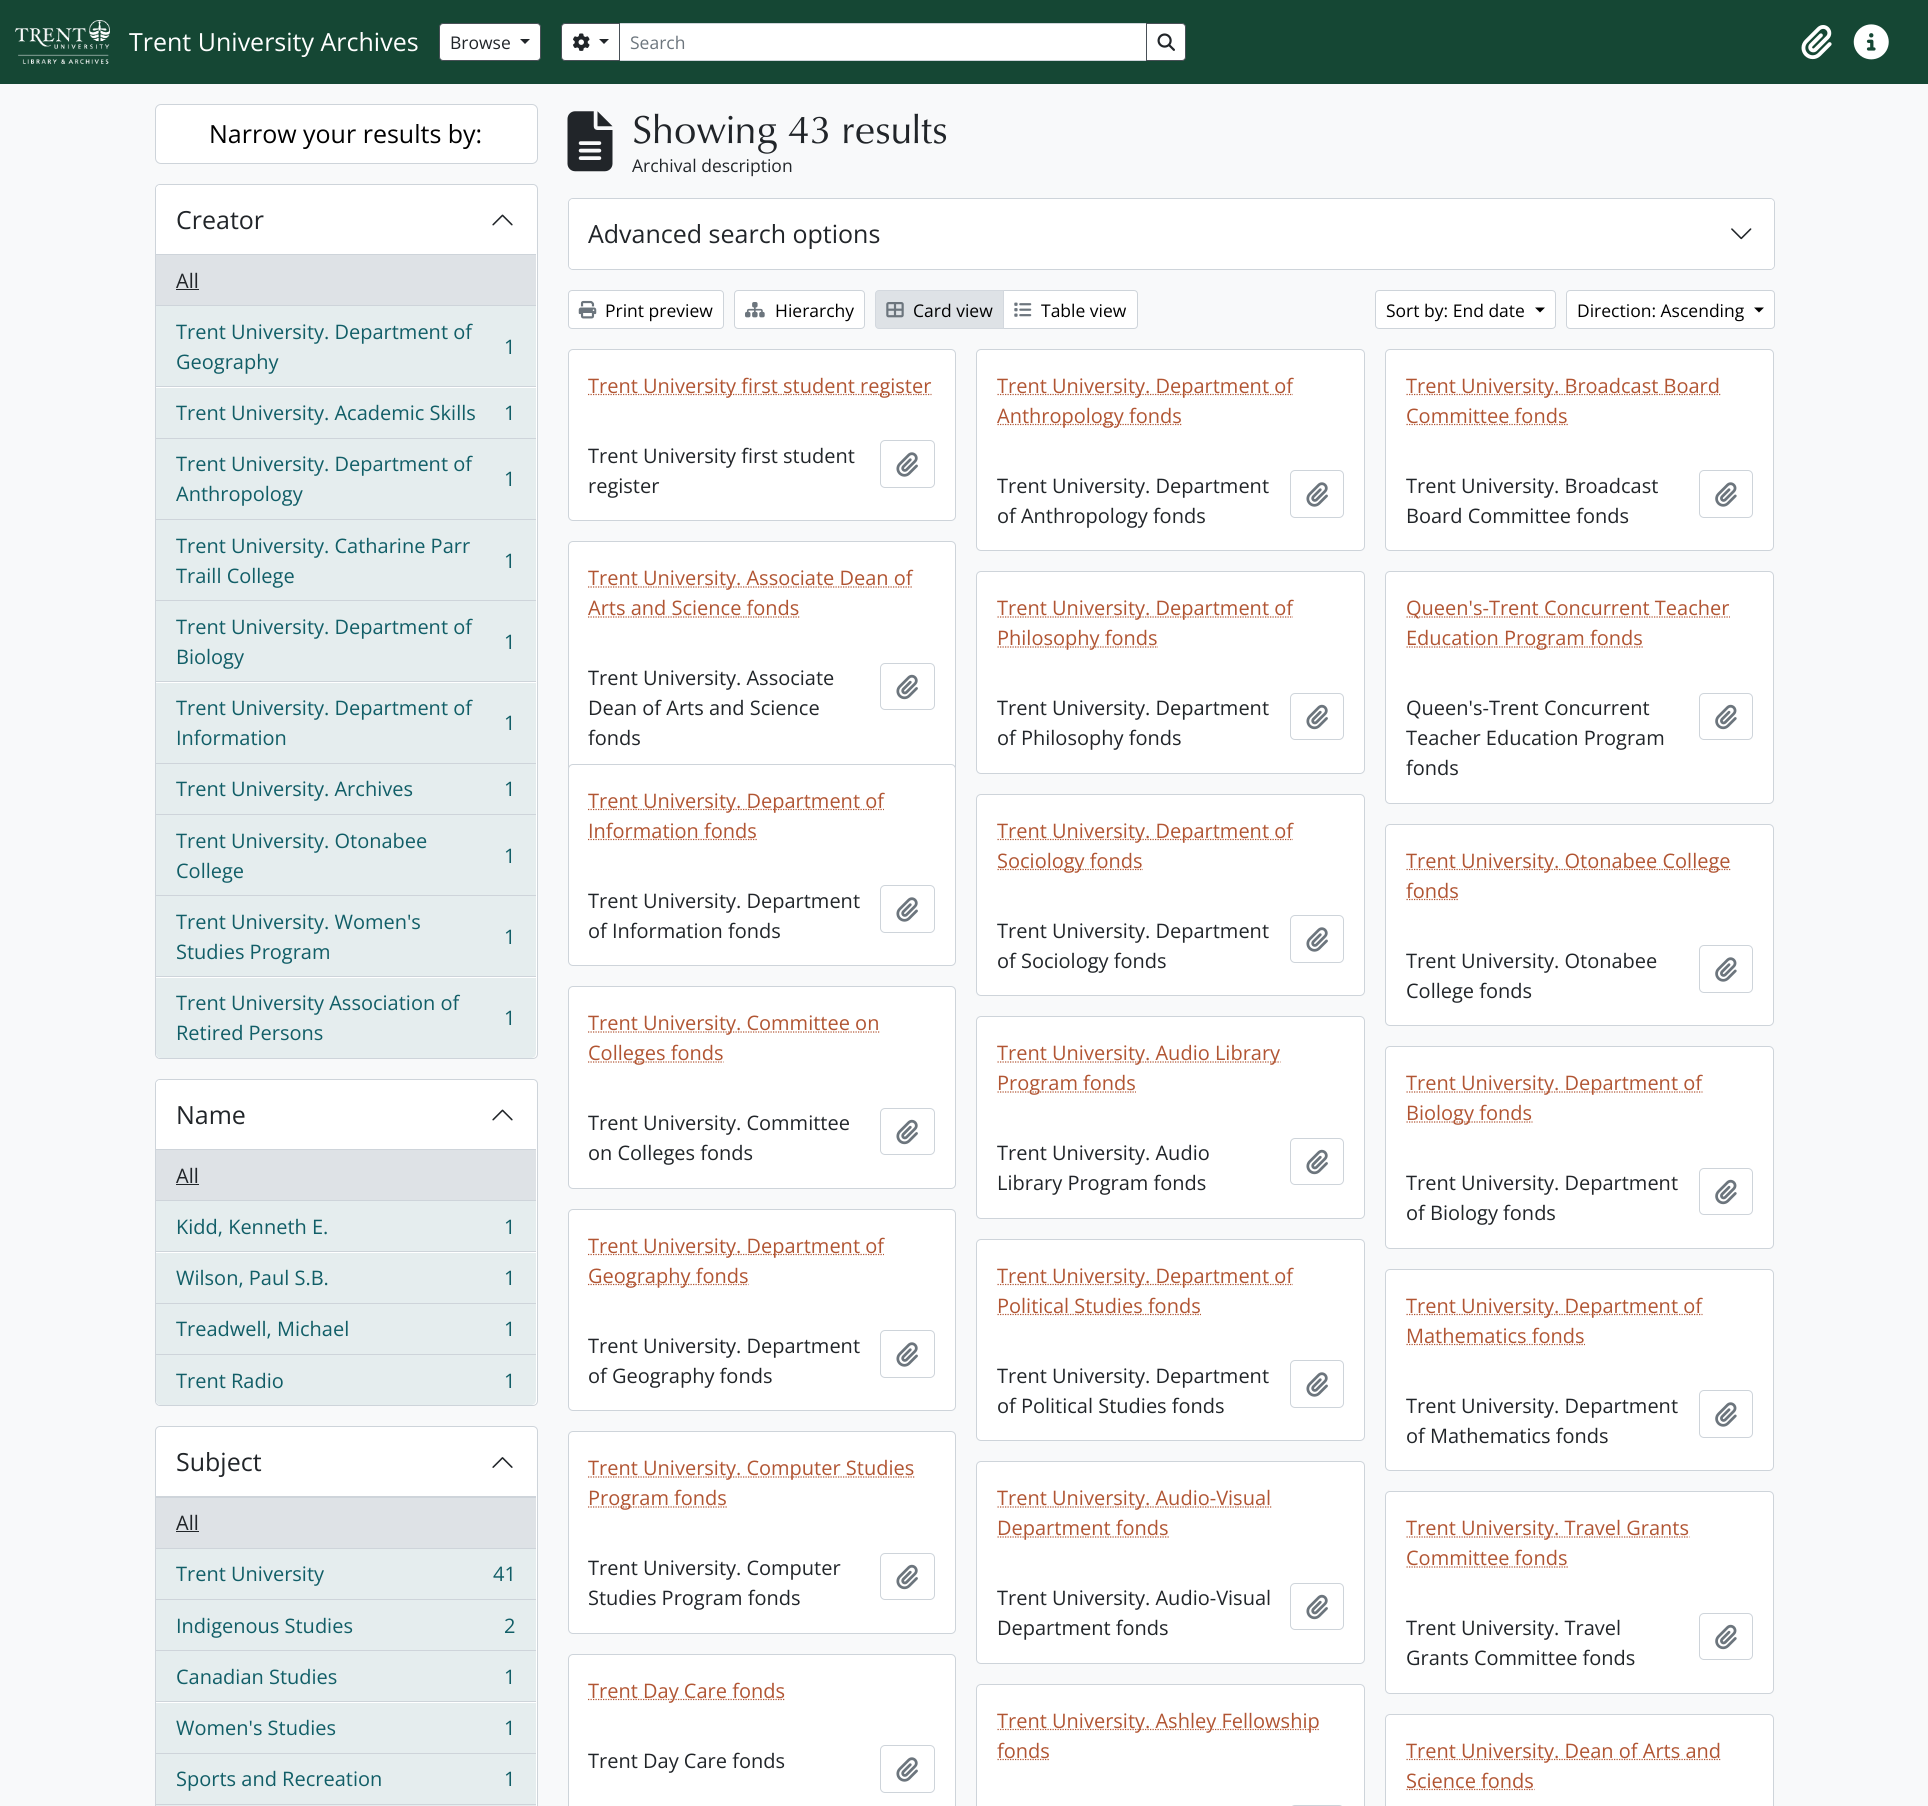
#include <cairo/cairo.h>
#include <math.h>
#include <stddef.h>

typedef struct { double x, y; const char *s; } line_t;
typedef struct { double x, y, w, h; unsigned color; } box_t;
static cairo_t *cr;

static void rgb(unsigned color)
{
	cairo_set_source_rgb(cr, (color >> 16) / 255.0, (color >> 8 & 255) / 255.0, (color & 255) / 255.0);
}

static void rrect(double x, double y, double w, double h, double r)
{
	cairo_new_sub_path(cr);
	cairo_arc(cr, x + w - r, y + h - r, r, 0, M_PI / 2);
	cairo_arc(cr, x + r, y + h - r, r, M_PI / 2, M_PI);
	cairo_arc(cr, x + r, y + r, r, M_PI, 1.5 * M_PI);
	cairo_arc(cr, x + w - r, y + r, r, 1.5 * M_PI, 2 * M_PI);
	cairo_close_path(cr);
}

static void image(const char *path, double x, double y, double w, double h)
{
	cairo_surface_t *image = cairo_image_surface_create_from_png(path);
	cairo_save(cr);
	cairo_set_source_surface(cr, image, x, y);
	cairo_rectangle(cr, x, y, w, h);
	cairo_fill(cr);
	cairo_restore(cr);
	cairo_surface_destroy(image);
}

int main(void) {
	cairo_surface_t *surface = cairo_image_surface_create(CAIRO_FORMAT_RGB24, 1928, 1806);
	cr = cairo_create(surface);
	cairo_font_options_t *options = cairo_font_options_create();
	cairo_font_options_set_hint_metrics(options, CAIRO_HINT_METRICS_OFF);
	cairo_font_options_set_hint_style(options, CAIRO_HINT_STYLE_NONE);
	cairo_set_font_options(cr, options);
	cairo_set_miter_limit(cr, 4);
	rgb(0xf8f9fa);
	cairo_paint(cr);
	rgb(0x154734);
	cairo_rectangle(cr, 0, 0, 1928, 84);
	cairo_fill(cr);
	image("img/1.png", 15, 20, 95, 44);
	rgb(0xffffff);
	rrect(439.5, 23.5, 101, 37, 3.5);
	cairo_fill_preserve(cr);
	rgb(0x495057);
	cairo_set_line_width(cr, 1);
	cairo_stroke(cr);
	rgb(0x212529);
	cairo_new_path(cr);
	cairo_move_to(cr, 520, 39);
	cairo_line_to(cr, 530, 39);
	cairo_line_to(cr, 525, 44);
	cairo_close_path(cr);
	cairo_fill(cr);
	rgb(0xffffff);
	cairo_rectangle(cr, 620, 24, 526, 36);
	cairo_fill(cr);
	cairo_rectangle(cr, 619.5, 23.5, 528, 37);
	rgb(0xced4da);
	cairo_stroke(cr);
	rgb(0xffffff);
	cairo_new_path(cr);
	cairo_move_to(cr, 565, 23.5);
	cairo_line_to(cr, 619.5, 23.5);
	cairo_line_to(cr, 619.5, 60.5);
	cairo_line_to(cr, 565, 60.5);
	cairo_curve_to(cr, 563, 60.5, 561.5, 59, 561.5, 57);
	cairo_line_to(cr, 561.5, 27);
	cairo_curve_to(cr, 561.5, 25, 563, 23.5, 565, 23.5);
	cairo_close_path(cr);
	cairo_fill_preserve(cr);
	rgb(0x495057);
	cairo_stroke(cr);
	image("img/2.png", 573, 33, 17, 18);
	rgb(0x212529);
	cairo_new_path(cr);
	cairo_move_to(cr, 599, 39);
	cairo_line_to(cr, 609, 39);
	cairo_line_to(cr, 604, 44);
	cairo_close_path(cr);
	cairo_fill(cr);
	rgb(0xffffff);
	cairo_new_path(cr);
	cairo_move_to(cr, 1146.5, 23.5);
	cairo_line_to(cr, 1182, 23.5);
	cairo_curve_to(cr, 1184, 23.5, 1185.5, 25, 1185.5, 27);
	cairo_line_to(cr, 1185.5, 57);
	cairo_curve_to(cr, 1185.5, 59, 1184, 60.5, 1182, 60.5);
	cairo_line_to(cr, 1146.5, 60.5);
	cairo_close_path(cr);
	cairo_fill_preserve(cr);
	rgb(0x495057);
	cairo_stroke(cr);
	image("img/3.png", 1157, 33, 18, 18);
	image("img/4.png", 1801, 25, 31, 35);
	image("img/5.png", 1853, 24, 36, 36);
	rgb(0xffffff);
	rrect(155.5, 104.5, 382, 59, 5.5);
	cairo_fill_preserve(cr);
	rgb(0xced4da);
	cairo_stroke(cr);
	rgb(0xffffff);
	rrect(155.5, 184.5, 382, 874, 4.5);
	cairo_fill_preserve(cr);
	rgb(0xced4da);
	cairo_stroke(cr);
	rgb(0xffffff);
	cairo_new_path(cr);
	cairo_move_to(cr, 160, 185);
	cairo_line_to(cr, 532, 185);
	cairo_curve_to(cr, 534, 185, 536, 187, 536, 189);
	cairo_line_to(cr, 536, 255);
	cairo_line_to(cr, 156, 255);
	cairo_line_to(cr, 156, 189);
	cairo_curve_to(cr, 156, 187, 158, 185, 160, 185);
	cairo_close_path(cr);
	cairo_fill(cr);
	rgb(0xced4da);
	cairo_rectangle(cr, 156, 254, 380, 1);
	cairo_fill(cr);
	image("img/6.png", 492, 214, 21, 12);
	{
		static const box_t items[] = {
			{156, 255, 380, 50, 0xdee2e6},
			{156, 305, 380, 1, 0xced4da},
			{176, 289, 23, 1, 0x212529},
			{156, 306, 380, 80, 0xe5edee},
			{156, 386, 380, 1, 0xced4da},
			{156, 388, 380, 50, 0xe5edee},
			{156, 438, 380, 1, 0xced4da},
			{156, 439, 380, 80, 0xe5edee},
			{156, 519, 380, 1, 0xced4da},
			{156, 520, 380, 80, 0xe5edee},
			{156, 600, 380, 1, 0xced4da},
			{156, 601, 380, 80, 0xe5edee},
			{156, 681, 380, 1, 0xced4da},
			{156, 683, 380, 80, 0xe5edee},
			{156, 763, 380, 1, 0xced4da},
			{156, 764, 380, 50, 0xe5edee},
			{156, 814, 380, 1, 0xced4da},
			{156, 815, 380, 80, 0xe5edee},
			{156, 895, 380, 1, 0xced4da},
			{156, 896, 380, 80, 0xe5edee},
			{156, 976, 380, 1, 0xced4da},
		};
		for (size_t i = 0; i < sizeof items / sizeof *items; i++) {
			rgb(items[i].color);
			cairo_rectangle(cr, items[i].x, items[i].y, items[i].w, items[i].h);
			cairo_fill(cr);
		}
	}
	rgb(0xe5edee);
	cairo_new_path(cr);
	cairo_move_to(cr, 156, 978);
	cairo_line_to(cr, 536, 978);
	cairo_line_to(cr, 536, 1053);
	cairo_curve_to(cr, 536, 1056, 534, 1058, 531, 1058);
	cairo_line_to(cr, 161, 1058);
	cairo_curve_to(cr, 158, 1058, 156, 1056, 156, 1053);
	cairo_close_path(cr);
	cairo_fill(cr);
	rgb(0xffffff);
	rrect(155.5, 1079.5, 382, 326, 4.5);
	cairo_fill_preserve(cr);
	rgb(0xced4da);
	cairo_stroke(cr);
	rgb(0xffffff);
	cairo_new_path(cr);
	cairo_move_to(cr, 160, 1080);
	cairo_line_to(cr, 532, 1080);
	cairo_curve_to(cr, 534, 1080, 536, 1082, 536, 1084);
	cairo_line_to(cr, 536, 1150);
	cairo_line_to(cr, 156, 1150);
	cairo_line_to(cr, 156, 1084);
	cairo_curve_to(cr, 156, 1082, 158, 1080, 160, 1080);
	cairo_close_path(cr);
	cairo_fill(cr);
	rgb(0xced4da);
	cairo_rectangle(cr, 156, 1149, 380, 1);
	cairo_fill(cr);
	image("img/6.png", 492, 1109, 21, 12);
	{
		static const box_t items[] = {
			{156, 1150, 380, 50, 0xdee2e6},
			{156, 1200, 380, 1, 0xced4da},
			{176, 1184, 23, 1, 0x212529},
			{156, 1201, 380, 50, 0xe5edee},
			{156, 1251, 380, 1, 0xced4da},
			{156, 1253, 380, 50, 0xe5edee},
			{156, 1303, 380, 1, 0xced4da},
			{156, 1304, 380, 50, 0xe5edee},
			{156, 1354, 380, 1, 0xced4da},
		};
		for (size_t i = 0; i < sizeof items / sizeof *items; i++) {
			rgb(items[i].color);
			cairo_rectangle(cr, items[i].x, items[i].y, items[i].w, items[i].h);
			cairo_fill(cr);
		}
	}
	rgb(0xe5edee);
	cairo_new_path(cr);
	cairo_move_to(cr, 156, 1355);
	cairo_line_to(cr, 536, 1355);
	cairo_line_to(cr, 536, 1400);
	cairo_curve_to(cr, 536, 1403, 534, 1405, 531, 1405);
	cairo_line_to(cr, 161, 1405);
	cairo_curve_to(cr, 158, 1405, 156, 1403, 156, 1400);
	cairo_close_path(cr);
	cairo_fill(cr);
	rgb(0xffffff);
	rrect(155.5, 1426.5, 382, 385, 4.5);
	cairo_fill_preserve(cr);
	rgb(0xced4da);
	cairo_stroke(cr);
	cairo_rectangle(cr, 156, 1496, 380, 2);
	cairo_fill(cr);
	image("img/7.png", 492, 1457, 21, 11);
	{
		static const box_t items[] = {
			{156, 1498, 380, 50, 0xdee2e6},
			{156, 1548, 380, 1, 0xced4da},
			{176, 1531, 23, 1, 0x212529},
			{156, 1549, 380, 50, 0xe5edee},
			{156, 1599, 380, 1, 0xced4da},
			{156, 1600, 380, 50, 0xe5edee},
			{156, 1650, 380, 1, 0xced4da},
			{156, 1651, 380, 50, 0xe5edee},
			{156, 1701, 380, 1, 0xced4da},
			{156, 1703, 380, 50, 0xe5edee},
			{156, 1753, 380, 1, 0xced4da},
			{156, 1754, 380, 50, 0xe5edee},
			{156, 1804, 380, 1, 0xced4da},
			{156, 1805, 380, 1, 0xe5edee},
		};
		for (size_t i = 0; i < sizeof items / sizeof *items; i++) {
			rgb(items[i].color);
			cairo_rectangle(cr, items[i].x, items[i].y, items[i].w, items[i].h);
			cairo_fill(cr);
		}
	}
	image("img/8.png", 567, 111, 46, 61);
	rrect(568.5, 198.5, 1206, 71, 4.5);
	rgb(0xced4da);
	cairo_stroke(cr);
	rgb(0xffffff);
	rrect(569, 199, 1205, 70, 4);
	cairo_fill(cr);
	image("img/9.png", 1731, 228, 21, 12);
	rrect(568.5, 290.5, 155, 38, 3.5);
	cairo_fill_preserve(cr);
	rgb(0xced4da);
	cairo_stroke(cr);
	image("img/10.png", 578, 300, 19, 19);
	rgb(0xffffff);
	rrect(734.5, 290.5, 130, 38, 3.5);
	cairo_fill_preserve(cr);
	rgb(0xced4da);
	cairo_stroke(cr);
	image("img/11.png", 745, 302, 20, 16);
	rgb(0xffffff);
	cairo_new_path(cr);
	cairo_move_to(cr, 1003.5, 290.5);
	cairo_line_to(cr, 1134, 290.5);
	cairo_curve_to(cr, 1136, 290.5, 1137.5, 292, 1137.5, 294);
	cairo_line_to(cr, 1137.5, 325);
	cairo_curve_to(cr, 1137.5, 327, 1136, 328.5, 1134, 328.5);
	cairo_line_to(cr, 1003.5, 328.5);
	cairo_close_path(cr);
	cairo_fill_preserve(cr);
	rgb(0xced4da);
	cairo_stroke(cr);
	rgb(0xdee2e6);
	cairo_new_path(cr);
	cairo_move_to(cr, 879, 290.5);
	cairo_line_to(cr, 1003.5, 290.5);
	cairo_line_to(cr, 1003.5, 328.5);
	cairo_line_to(cr, 879, 328.5);
	cairo_curve_to(cr, 877, 328.5, 875.5, 327, 875.5, 325);
	cairo_line_to(cr, 875.5, 294);
	cairo_curve_to(cr, 875.5, 292, 877, 290.5, 879, 290.5);
	cairo_close_path(cr);
	cairo_fill_preserve(cr);
	rgb(0xd3d8de);
	cairo_stroke(cr);
	image("img/12.png", 886, 302, 18, 16);
	image("img/13.png", 1014, 302, 18, 15);
	rgb(0xffffff);
	rrect(1375.5, 290.5, 180, 38, 3.5);
	cairo_fill_preserve(cr);
	rgb(0xced4da);
	cairo_stroke(cr);
	rgb(0x000000);
	cairo_new_path(cr);
	cairo_move_to(cr, 1535, 307.5);
	cairo_line_to(cr, 1545, 307.5);
	cairo_line_to(cr, 1540, 312.5);
	cairo_close_path(cr);
	cairo_fill(cr);
	rgb(0xffffff);
	rrect(1566.5, 290.5, 208, 38, 3.5);
	cairo_fill_preserve(cr);
	rgb(0xced4da);
	cairo_stroke(cr);
	rgb(0x000000);
	cairo_new_path(cr);
	cairo_move_to(cr, 1754, 307.5);
	cairo_line_to(cr, 1764, 307.5);
	cairo_line_to(cr, 1759, 312.5);
	cairo_close_path(cr);
	cairo_fill(cr);
	rgb(0xffffff);
	rrect(568.5, 349.5, 387, 171, 4.5);
	cairo_fill_preserve(cr);
	rgb(0xced4da);
	cairo_stroke(cr);
	cairo_new_path(cr);
	cairo_move_to(cr, 588, 394.5);
	cairo_line_to(cr, 931.5, 394.5);
	rgb(0xb15533);
	cairo_set_line_width(cr, 1.2);
	cairo_set_dash(cr, (double[]){1.25, 1.25}, 2, 0);
	cairo_stroke(cr);
	rrect(880.5, 440.5, 54, 47, 4.5);
	rgb(0xced4da);
	cairo_set_line_width(cr, 1);
	cairo_set_dash(cr, NULL, 0, 0);
	cairo_stroke(cr);
	image("img/14.png", 896, 452, 22, 25);
	rgb(0xffffff);
	rrect(976.5, 349.5, 388, 201, 4.5);
	cairo_fill_preserve(cr);
	rgb(0xced4da);
	cairo_stroke(cr);
	cairo_new_path(cr);
	cairo_move_to(cr, 997.5, 394.5);
	cairo_line_to(cr, 1293, 394.5);
	rgb(0xb15533);
	cairo_set_line_width(cr, 1.2);
	cairo_set_dash(cr, (double[]){1.25, 1.25}, 2, 0);
	cairo_stroke(cr);
	cairo_new_path(cr);
	cairo_move_to(cr, 997.5, 424.5);
	cairo_line_to(cr, 1182, 424.5);
	cairo_stroke(cr);
	rrect(1290.5, 470.5, 53, 47, 4.5);
	rgb(0xced4da);
	cairo_set_line_width(cr, 1);
	cairo_set_dash(cr, NULL, 0, 0);
	cairo_stroke(cr);
	image("img/14.png", 1306, 482, 22, 25);
	rgb(0xffffff);
	rrect(1385.5, 349.5, 388, 201, 4.5);
	cairo_fill_preserve(cr);
	rgb(0xced4da);
	cairo_stroke(cr);
	cairo_new_path(cr);
	cairo_move_to(cr, 1406.5, 394.5);
	cairo_line_to(cr, 1720.5, 394.5);
	rgb(0xb15533);
	cairo_set_line_width(cr, 1.2);
	cairo_set_dash(cr, (double[]){1.25, 1.25}, 2, 0);
	cairo_stroke(cr);
	cairo_new_path(cr);
	cairo_move_to(cr, 1406.5, 424.5);
	cairo_line_to(cr, 1568, 424.5);
	cairo_stroke(cr);
	rrect(1699.5, 470.5, 53, 47, 4.5);
	rgb(0xced4da);
	cairo_set_line_width(cr, 1);
	cairo_set_dash(cr, NULL, 0, 0);
	cairo_stroke(cr);
	image("img/15.png", 1715, 482, 22, 25);
	rgb(0xffffff);
	rrect(568.5, 541.5, 387, 232, 4.5);
	cairo_fill_preserve(cr);
	rgb(0xced4da);
	cairo_stroke(cr);
	cairo_new_path(cr);
	cairo_move_to(cr, 588, 587);
	cairo_line_to(cr, 912.5, 587);
	rgb(0xb15533);
	cairo_set_line_width(cr, 1.2);
	cairo_set_dash(cr, (double[]){1.25, 1.25}, 2, 0);
	cairo_stroke(cr);
	cairo_new_path(cr);
	cairo_move_to(cr, 588, 617);
	cairo_line_to(cr, 799.5, 617);
	cairo_stroke(cr);
	rrect(880.5, 663.5, 54, 46, 4.5);
	rgb(0xced4da);
	cairo_set_line_width(cr, 1);
	cairo_set_dash(cr, NULL, 0, 0);
	cairo_stroke(cr);
	image("img/16.png", 896, 674, 22, 26);
	rgb(0xffffff);
	rrect(976.5, 571.5, 388, 202, 4.5);
	cairo_fill_preserve(cr);
	rgb(0xced4da);
	cairo_stroke(cr);
	cairo_new_path(cr);
	cairo_move_to(cr, 997.5, 617);
	cairo_line_to(cr, 1293, 617);
	rgb(0xb15533);
	cairo_set_line_width(cr, 1.2);
	cairo_set_dash(cr, (double[]){1.25, 1.25}, 2, 0);
	cairo_stroke(cr);
	cairo_new_path(cr);
	cairo_move_to(cr, 997.5, 647);
	cairo_line_to(cr, 1158, 647);
	cairo_stroke(cr);
	rrect(1290.5, 693.5, 53, 46, 4.5);
	rgb(0xced4da);
	cairo_set_line_width(cr, 1);
	cairo_set_dash(cr, NULL, 0, 0);
	cairo_stroke(cr);
	image("img/16.png", 1306, 704, 22, 26);
	rgb(0xffffff);
	rrect(1385.5, 571.5, 388, 232, 4.5);
	cairo_fill_preserve(cr);
	rgb(0xced4da);
	cairo_stroke(cr);
	cairo_new_path(cr);
	cairo_move_to(cr, 1406.5, 617);
	cairo_line_to(cr, 1730, 617);
	rgb(0xb15533);
	cairo_set_line_width(cr, 1.2);
	cairo_set_dash(cr, (double[]){1.25, 1.25}, 2, 0);
	cairo_stroke(cr);
	cairo_new_path(cr);
	cairo_move_to(cr, 1406.5, 647);
	cairo_line_to(cr, 1643.5, 647);
	cairo_stroke(cr);
	rrect(1699.5, 693.5, 53, 46, 4.5);
	rgb(0xced4da);
	cairo_set_line_width(cr, 1);
	cairo_set_dash(cr, NULL, 0, 0);
	cairo_stroke(cr);
	image("img/17.png", 1715, 704, 22, 26);
	rgb(0xffffff);
	rrect(568.5, 764.5, 387, 201, 4.5);
	cairo_fill_preserve(cr);
	rgb(0xced4da);
	cairo_stroke(cr);
	cairo_new_path(cr);
	cairo_move_to(cr, 588, 809.5);
	cairo_line_to(cr, 884, 809.5);
	rgb(0xb15533);
	cairo_set_line_width(cr, 1.2);
	cairo_set_dash(cr, (double[]){1.25, 1.25}, 2, 0);
	cairo_stroke(cr);
	cairo_new_path(cr);
	cairo_move_to(cr, 588, 839.5);
	cairo_line_to(cr, 757, 839.5);
	cairo_stroke(cr);
	rrect(880.5, 885.5, 54, 47, 4.5);
	rgb(0xced4da);
	cairo_set_line_width(cr, 1);
	cairo_set_dash(cr, NULL, 0, 0);
	cairo_stroke(cr);
	image("img/14.png", 896, 897, 22, 25);
	rgb(0xffffff);
	rrect(976.5, 794.5, 388, 201, 4.5);
	cairo_fill_preserve(cr);
	rgb(0xced4da);
	cairo_stroke(cr);
	cairo_new_path(cr);
	cairo_move_to(cr, 997.5, 839.5);
	cairo_line_to(cr, 1293, 839.5);
	rgb(0xb15533);
	cairo_set_line_width(cr, 1.2);
	cairo_set_dash(cr, (double[]){1.25, 1.25}, 2, 0);
	cairo_stroke(cr);
	cairo_new_path(cr);
	cairo_move_to(cr, 997.5, 869.5);
	cairo_line_to(cr, 1143, 869.5);
	cairo_stroke(cr);
	rrect(1290.5, 915.5, 53, 47, 4.5);
	rgb(0xced4da);
	cairo_set_line_width(cr, 1);
	cairo_set_dash(cr, NULL, 0, 0);
	cairo_stroke(cr);
	image("img/14.png", 1306, 927, 22, 25);
	rgb(0xffffff);
	rrect(1385.5, 824.5, 388, 201, 4.5);
	cairo_fill_preserve(cr);
	rgb(0xced4da);
	cairo_stroke(cr);
	cairo_new_path(cr);
	cairo_move_to(cr, 1406.5, 869.5);
	cairo_line_to(cr, 1731, 869.5);
	rgb(0xb15533);
	cairo_set_line_width(cr, 1.2);
	cairo_set_dash(cr, (double[]){1.25, 1.25}, 2, 0);
	cairo_stroke(cr);
	cairo_new_path(cr);
	cairo_move_to(cr, 1406.5, 899.5);
	cairo_line_to(cr, 1459, 899.5);
	cairo_stroke(cr);
	rrect(1699.5, 945.5, 53, 47, 4.5);
	rgb(0xced4da);
	cairo_set_line_width(cr, 1);
	cairo_set_dash(cr, NULL, 0, 0);
	cairo_stroke(cr);
	image("img/15.png", 1715, 957, 22, 25);
	rgb(0xffffff);
	rrect(568.5, 986.5, 387, 202, 4.5);
	cairo_fill_preserve(cr);
	rgb(0xced4da);
	cairo_stroke(cr);
	cairo_new_path(cr);
	cairo_move_to(cr, 588, 1032);
	cairo_line_to(cr, 879.5, 1032);
	rgb(0xb15533);
	cairo_set_line_width(cr, 1.2);
	cairo_set_dash(cr, (double[]){1.25, 1.25}, 2, 0);
	cairo_stroke(cr);
	cairo_new_path(cr);
	cairo_move_to(cr, 588, 1062);
	cairo_line_to(cr, 723.5, 1062);
	cairo_stroke(cr);
	rrect(880.5, 1108.5, 54, 46, 4.5);
	rgb(0xced4da);
	cairo_set_line_width(cr, 1);
	cairo_set_dash(cr, NULL, 0, 0);
	cairo_stroke(cr);
	image("img/16.png", 896, 1119, 22, 26);
	rgb(0xffffff);
	rrect(976.5, 1016.5, 388, 202, 4.5);
	cairo_fill_preserve(cr);
	rgb(0xced4da);
	cairo_stroke(cr);
	cairo_new_path(cr);
	cairo_move_to(cr, 997.5, 1062);
	cairo_line_to(cr, 1280.5, 1062);
	rgb(0xb15533);
	cairo_set_line_width(cr, 1.2);
	cairo_set_dash(cr, (double[]){1.25, 1.25}, 2, 0);
	cairo_stroke(cr);
	cairo_new_path(cr);
	cairo_move_to(cr, 997.5, 1092);
	cairo_line_to(cr, 1136, 1092);
	cairo_stroke(cr);
	rrect(1290.5, 1138.5, 53, 46, 4.5);
	rgb(0xced4da);
	cairo_set_line_width(cr, 1);
	cairo_set_dash(cr, NULL, 0, 0);
	cairo_stroke(cr);
	image("img/16.png", 1306, 1149, 22, 26);
	rgb(0xffffff);
	rrect(1385.5, 1046.5, 388, 202, 4.5);
	cairo_fill_preserve(cr);
	rgb(0xced4da);
	cairo_stroke(cr);
	cairo_new_path(cr);
	cairo_move_to(cr, 1406.5, 1092);
	cairo_line_to(cr, 1702.5, 1092);
	rgb(0xb15533);
	cairo_set_line_width(cr, 1.2);
	cairo_set_dash(cr, (double[]){1.25, 1.25}, 2, 0);
	cairo_stroke(cr);
	cairo_new_path(cr);
	cairo_move_to(cr, 1406.5, 1122);
	cairo_line_to(cr, 1532.5, 1122);
	cairo_stroke(cr);
	rrect(1699.5, 1168.5, 53, 46, 4.5);
	rgb(0xced4da);
	cairo_set_line_width(cr, 1);
	cairo_set_dash(cr, NULL, 0, 0);
	cairo_stroke(cr);
	image("img/17.png", 1715, 1179, 22, 26);
	rgb(0xffffff);
	rrect(568.5, 1209.5, 387, 201, 4.5);
	cairo_fill_preserve(cr);
	rgb(0xced4da);
	cairo_stroke(cr);
	cairo_new_path(cr);
	cairo_move_to(cr, 588, 1254.5);
	cairo_line_to(cr, 884, 1254.5);
	rgb(0xb15533);
	cairo_set_line_width(cr, 1.2);
	cairo_set_dash(cr, (double[]){1.25, 1.25}, 2, 0);
	cairo_stroke(cr);
	cairo_new_path(cr);
	cairo_move_to(cr, 588, 1284.5);
	cairo_line_to(cr, 748.5, 1284.5);
	cairo_stroke(cr);
	rrect(880.5, 1330.5, 54, 47, 4.5);
	rgb(0xced4da);
	cairo_set_line_width(cr, 1);
	cairo_set_dash(cr, NULL, 0, 0);
	cairo_stroke(cr);
	image("img/14.png", 896, 1342, 22, 25);
	rgb(0xffffff);
	rrect(976.5, 1239.5, 388, 201, 4.5);
	cairo_fill_preserve(cr);
	rgb(0xced4da);
	cairo_stroke(cr);
	cairo_new_path(cr);
	cairo_move_to(cr, 997.5, 1284.5);
	cairo_line_to(cr, 1293, 1284.5);
	rgb(0xb15533);
	cairo_set_line_width(cr, 1.2);
	cairo_set_dash(cr, (double[]){1.25, 1.25}, 2, 0);
	cairo_stroke(cr);
	cairo_new_path(cr);
	cairo_move_to(cr, 997.5, 1314.5);
	cairo_line_to(cr, 1201, 1314.5);
	cairo_stroke(cr);
	rrect(1290.5, 1360.5, 53, 47, 4.5);
	rgb(0xced4da);
	cairo_set_line_width(cr, 1);
	cairo_set_dash(cr, NULL, 0, 0);
	cairo_stroke(cr);
	image("img/14.png", 1306, 1372, 22, 25);
	rgb(0xffffff);
	rrect(1385.5, 1269.5, 388, 201, 4.5);
	cairo_fill_preserve(cr);
	rgb(0xced4da);
	cairo_stroke(cr);
	cairo_new_path(cr);
	cairo_move_to(cr, 1406.5, 1314.5);
	cairo_line_to(cr, 1702.5, 1314.5);
	rgb(0xb15533);
	cairo_set_line_width(cr, 1.2);
	cairo_set_dash(cr, (double[]){1.25, 1.25}, 2, 0);
	cairo_stroke(cr);
	cairo_new_path(cr);
	cairo_move_to(cr, 1406.5, 1344.5);
	cairo_line_to(cr, 1585, 1344.5);
	cairo_stroke(cr);
	rrect(1699.5, 1390.5, 53, 47, 4.5);
	rgb(0xced4da);
	cairo_set_line_width(cr, 1);
	cairo_set_dash(cr, NULL, 0, 0);
	cairo_stroke(cr);
	image("img/15.png", 1715, 1402, 22, 25);
	rgb(0xffffff);
	rrect(568.5, 1431.5, 387, 202, 4.5);
	cairo_fill_preserve(cr);
	rgb(0xced4da);
	cairo_stroke(cr);
	cairo_new_path(cr);
	cairo_move_to(cr, 588, 1477);
	cairo_line_to(cr, 914.5, 1477);
	rgb(0xb15533);
	cairo_set_line_width(cr, 1.2);
	cairo_set_dash(cr, (double[]){1.25, 1.25}, 2, 0);
	cairo_stroke(cr);
	cairo_new_path(cr);
	cairo_move_to(cr, 588, 1507);
	cairo_line_to(cr, 727, 1507);
	cairo_stroke(cr);
	rrect(880.5, 1553.5, 54, 46, 4.5);
	rgb(0xced4da);
	cairo_set_line_width(cr, 1);
	cairo_set_dash(cr, NULL, 0, 0);
	cairo_stroke(cr);
	image("img/16.png", 896, 1564, 22, 26);
	rgb(0xffffff);
	rrect(976.5, 1461.5, 388, 202, 4.5);
	cairo_fill_preserve(cr);
	rgb(0xced4da);
	cairo_stroke(cr);
	cairo_new_path(cr);
	cairo_move_to(cr, 997.5, 1507);
	cairo_line_to(cr, 1271.5, 1507);
	rgb(0xb15533);
	cairo_set_line_width(cr, 1.2);
	cairo_set_dash(cr, (double[]){1.25, 1.25}, 2, 0);
	cairo_stroke(cr);
	cairo_new_path(cr);
	cairo_move_to(cr, 997.5, 1537);
	cairo_line_to(cr, 1169, 1537);
	cairo_stroke(cr);
	rrect(1290.5, 1583.5, 53, 46, 4.5);
	rgb(0xced4da);
	cairo_set_line_width(cr, 1);
	cairo_set_dash(cr, NULL, 0, 0);
	cairo_stroke(cr);
	image("img/16.png", 1306, 1594, 22, 26);
	rgb(0xffffff);
	rrect(1385.5, 1491.5, 388, 202, 4.5);
	cairo_fill_preserve(cr);
	rgb(0xced4da);
	cairo_stroke(cr);
	cairo_new_path(cr);
	cairo_move_to(cr, 1406.5, 1537);
	cairo_line_to(cr, 1689.5, 1537);
	rgb(0xb15533);
	cairo_set_line_width(cr, 1.2);
	cairo_set_dash(cr, (double[]){1.25, 1.25}, 2, 0);
	cairo_stroke(cr);
	cairo_new_path(cr);
	cairo_move_to(cr, 1406.5, 1567);
	cairo_line_to(cr, 1568, 1567);
	cairo_stroke(cr);
	rrect(1699.5, 1613.5, 53, 46, 4.5);
	rgb(0xced4da);
	cairo_set_line_width(cr, 1);
	cairo_set_dash(cr, NULL, 0, 0);
	cairo_stroke(cr);
	image("img/17.png", 1715, 1624, 22, 26);
	rgb(0xffffff);
	rrect(568.5, 1654.5, 387, 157, 4.5);
	cairo_fill_preserve(cr);
	rgb(0xced4da);
	cairo_stroke(cr);
	cairo_new_path(cr);
	cairo_move_to(cr, 588, 1699.5);
	cairo_line_to(cr, 785, 1699.5);
	rgb(0xb15533);
	cairo_set_line_width(cr, 1.2);
	cairo_set_dash(cr, (double[]){1.25, 1.25}, 2, 0);
	cairo_stroke(cr);
	rrect(880.5, 1745.5, 54, 47, 4.5);
	rgb(0xced4da);
	cairo_set_line_width(cr, 1);
	cairo_set_dash(cr, NULL, 0, 0);
	cairo_stroke(cr);
	image("img/14.png", 896, 1757, 22, 25);
	rgb(0xffffff);
	rrect(976.5, 1684.5, 388, 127, 4.5);
	cairo_fill_preserve(cr);
	rgb(0xced4da);
	cairo_stroke(cr);
	cairo_new_path(cr);
	cairo_move_to(cr, 997.5, 1729.5);
	cairo_line_to(cr, 1320, 1729.5);
	rgb(0xb15533);
	cairo_set_line_width(cr, 1.2);
	cairo_set_dash(cr, (double[]){1.25, 1.25}, 2, 0);
	cairo_stroke(cr);
	cairo_new_path(cr);
	cairo_move_to(cr, 997.5, 1759.5);
	cairo_line_to(cr, 1050, 1759.5);
	cairo_stroke(cr);
	rrect(1290.5, 1805.5, 53, 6, 4.5);
	rgb(0xced4da);
	cairo_set_line_width(cr, 1);
	cairo_set_dash(cr, NULL, 0, 0);
	cairo_stroke(cr);
	rgb(0xffffff);
	rrect(1385.5, 1714.5, 388, 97, 4.5);
	cairo_fill_preserve(cr);
	rgb(0xced4da);
	cairo_stroke(cr);
	cairo_new_path(cr);
	cairo_move_to(cr, 1406.5, 1759.5);
	cairo_line_to(cr, 1721.5, 1759.5);
	rgb(0xb15533);
	cairo_set_line_width(cr, 1.2);
	cairo_set_dash(cr, (double[]){1.25, 1.25}, 2, 0);
	cairo_stroke(cr);
	cairo_new_path(cr);
	cairo_move_to(cr, 1406.5, 1789.5);
	cairo_line_to(cr, 1534.5, 1789.5);
	cairo_stroke(cr);
	cairo_select_font_face(cr, "Open Sans", CAIRO_FONT_SLANT_NORMAL, CAIRO_FONT_WEIGHT_NORMAL);
	cairo_set_font_size(cr, 25);
	rgb(0xffffff);
	cairo_move_to(cr, 129, 51);
	cairo_show_text(cr, "Trent University Archives");
	cairo_set_font_size(cr, 17.5);
	rgb(0x212529);
	cairo_move_to(cr, 450, 49);
	cairo_show_text(cr, "Browse");
	rgb(0x6c757d);
	cairo_move_to(cr, 630, 49);
	cairo_show_text(cr, "Search");
	cairo_set_font_size(cr, 25);
	rgb(0x000000);
	cairo_move_to(cr, 209, 143);
	cairo_show_text(cr, "Narrow your results by:");
	rgb(0x212529);
	cairo_move_to(cr, 176, 229);
	cairo_show_text(cr, "Creator");
	cairo_set_font_size(cr, 20);
	cairo_move_to(cr, 176, 288);
	cairo_show_text(cr, "All");
	rgb(0x115e67);
	{
		static const line_t items[] = {
			{176, 339, "Trent University. Department of"},
			{504, 354, "1"},
			{176, 369, "Geography"},
			{176, 420, "Trent University. Academic Skills"},
			{504, 420, "1"},
			{176, 471, "Trent University. Department of"},
			{504, 486, "1"},
			{176, 501, "Anthropology"},
			{176, 553, "Trent University. Catharine Parr"},
			{504, 568, "1"},
			{176, 583, "Traill College"},
			{176, 634, "Trent University. Department of"},
			{504, 649, "1"},
			{176, 664, "Biology"},
			{176, 715, "Trent University. Department of"},
			{504, 730, "1"},
			{176, 745, "Information"},
			{176, 796, "Trent University. Archives"},
			{504, 796, "1"},
			{176, 848, "Trent University. Otonabee"},
			{504, 863, "1"},
			{176, 878, "College"},
			{176, 929, "Trent University. Women's"},
			{504, 944, "1"},
			{176, 959, "Studies Program"},
			{176, 1010, "Trent University Association of"},
			{504, 1025, "1"},
			{176, 1040, "Retired Persons"},
		};
		for (size_t i = 0; i < sizeof items / sizeof *items; i++) {
			cairo_move_to(cr, items[i].x, items[i].y);
			cairo_show_text(cr, items[i].s);
		}
	}
	cairo_set_font_size(cr, 25);
	rgb(0x212529);
	cairo_move_to(cr, 176, 1124);
	cairo_show_text(cr, "Name");
	cairo_set_font_size(cr, 20);
	cairo_move_to(cr, 176, 1183);
	cairo_show_text(cr, "All");
	rgb(0x115e67);
	{
		static const line_t items[] = {
			{176, 1234, "Kidd, Kenneth E."},
			{504, 1234, "1"},
			{176, 1285, "Wilson, Paul S.B."},
			{504, 1285, "1"},
			{176, 1336, "Treadwell, Michael"},
			{504, 1336, "1"},
			{176, 1388, "Trent Radio"},
			{504, 1388, "1"},
		};
		for (size_t i = 0; i < sizeof items / sizeof *items; i++) {
			cairo_move_to(cr, items[i].x, items[i].y);
			cairo_show_text(cr, items[i].s);
		}
	}
	cairo_set_font_size(cr, 25);
	rgb(0x212529);
	cairo_move_to(cr, 176, 1471);
	cairo_show_text(cr, "Subject");
	cairo_set_font_size(cr, 20);
	cairo_move_to(cr, 176, 1530);
	cairo_show_text(cr, "All");
	rgb(0x115e67);
	{
		static const line_t items[] = {
			{176, 1581, "Trent University"},
			{493, 1581, "41"},
			{176, 1633, "Indigenous Studies"},
			{504, 1633, "2"},
			{176, 1684, "Canadian Studies"},
			{504, 1684, "1"},
			{176, 1735, "Women's Studies"},
			{504, 1735, "1"},
			{176, 1786, "Sports and Recreation"},
			{504, 1786, "1"},
		};
		for (size_t i = 0; i < sizeof items / sizeof *items; i++) {
			cairo_move_to(cr, items[i].x, items[i].y);
			cairo_show_text(cr, items[i].s);
		}
	}
	cairo_select_font_face(cr, "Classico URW", CAIRO_FONT_SLANT_NORMAL, CAIRO_FONT_WEIGHT_NORMAL);
	cairo_set_font_size(cr, 40);
	rgb(0x212529);
	cairo_move_to(cr, 632, 143);
	cairo_show_text(cr, "Showing 43 results");
	cairo_select_font_face(cr, "Open Sans", CAIRO_FONT_SLANT_NORMAL, CAIRO_FONT_WEIGHT_NORMAL);
	cairo_set_font_size(cr, 17.5);
	cairo_move_to(cr, 632, 172);
	cairo_show_text(cr, "Archival description");
	cairo_set_font_size(cr, 25);
	cairo_move_to(cr, 588, 243);
	cairo_show_text(cr, "Advanced search options");
	cairo_set_font_size(cr, 17.5);
	rgb(0x000000);
	{
		static const line_t items[] = {
			{605, 317, "Print preview"},
			{775, 317, "Hierarchy"},
			{913, 317, "Card view"},
			{1041, 317, "Table view"},
			{1386, 317, "Sort by: End date"},
			{1577, 317, "Direction: Ascending"},
		};
		for (size_t i = 0; i < sizeof items / sizeof *items; i++) {
			cairo_move_to(cr, items[i].x, items[i].y);
			cairo_show_text(cr, items[i].s);
		}
	}
	cairo_set_font_size(cr, 20);
	rgb(0xb15533);
	cairo_move_to(cr, 588, 393);
	cairo_show_text(cr, "Trent University first student register");
	rgb(0x212529);
	cairo_move_to(cr, 588, 463);
	cairo_show_text(cr, "Trent University first student");
	cairo_move_to(cr, 588, 493);
	cairo_show_text(cr, "register");
	rgb(0xb15533);
	cairo_move_to(cr, 997, 393);
	cairo_show_text(cr, "Trent University. Department of");
	cairo_move_to(cr, 997, 423);
	cairo_show_text(cr, "Anthropology fonds");
	rgb(0x212529);
	cairo_move_to(cr, 997, 493);
	cairo_show_text(cr, "Trent University. Department");
	cairo_move_to(cr, 997, 523);
	cairo_show_text(cr, "of Anthropology fonds");
	rgb(0xb15533);
	cairo_move_to(cr, 1406, 393);
	cairo_show_text(cr, "Trent University. Broadcast Board");
	cairo_move_to(cr, 1406, 423);
	cairo_show_text(cr, "Committee fonds");
	rgb(0x212529);
	cairo_move_to(cr, 1406, 493);
	cairo_show_text(cr, "Trent University. Broadcast");
	cairo_move_to(cr, 1406, 523);
	cairo_show_text(cr, "Board Committee fonds");
	rgb(0xb15533);
	cairo_move_to(cr, 588, 585);
	cairo_show_text(cr, "Trent University. Associate Dean of");
	cairo_move_to(cr, 588, 615);
	cairo_show_text(cr, "Arts and Science fonds");
	rgb(0x212529);
	{
		static const line_t items[] = {
			{588, 685, "Trent University. Associate"},
			{588, 715, "Dean of Arts and Science"},
			{588, 745, "fonds"},
		};
		for (size_t i = 0; i < sizeof items / sizeof *items; i++) {
			cairo_move_to(cr, items[i].x, items[i].y);
			cairo_show_text(cr, items[i].s);
		}
	}
	rgb(0xb15533);
	cairo_move_to(cr, 997, 615);
	cairo_show_text(cr, "Trent University. Department of");
	cairo_move_to(cr, 997, 645);
	cairo_show_text(cr, "Philosophy fonds");
	rgb(0x212529);
	cairo_move_to(cr, 997, 715);
	cairo_show_text(cr, "Trent University. Department");
	cairo_move_to(cr, 997, 745);
	cairo_show_text(cr, "of Philosophy fonds");
	rgb(0xb15533);
	cairo_move_to(cr, 1406, 615);
	cairo_show_text(cr, "Queen's-Trent Concurrent Teacher");
	cairo_move_to(cr, 1406, 645);
	cairo_show_text(cr, "Education Program fonds");
	rgb(0x212529);
	{
		static const line_t items[] = {
			{1406, 715, "Queen's-Trent Concurrent"},
			{1406, 745, "Teacher Education Program"},
			{1406, 775, "fonds"},
		};
		for (size_t i = 0; i < sizeof items / sizeof *items; i++) {
			cairo_move_to(cr, items[i].x, items[i].y);
			cairo_show_text(cr, items[i].s);
		}
	}
	rgb(0xb15533);
	cairo_move_to(cr, 588, 808);
	cairo_show_text(cr, "Trent University. Department of");
	cairo_move_to(cr, 588, 838);
	cairo_show_text(cr, "Information fonds");
	rgb(0x212529);
	cairo_move_to(cr, 588, 908);
	cairo_show_text(cr, "Trent University. Department");
	cairo_move_to(cr, 588, 938);
	cairo_show_text(cr, "of Information fonds");
	rgb(0xb15533);
	cairo_move_to(cr, 997, 838);
	cairo_show_text(cr, "Trent University. Department of");
	cairo_move_to(cr, 997, 868);
	cairo_show_text(cr, "Sociology fonds");
	rgb(0x212529);
	cairo_move_to(cr, 997, 938);
	cairo_show_text(cr, "Trent University. Department");
	cairo_move_to(cr, 997, 968);
	cairo_show_text(cr, "of Sociology fonds");
	rgb(0xb15533);
	cairo_move_to(cr, 1406, 868);
	cairo_show_text(cr, "Trent University. Otonabee College");
	cairo_move_to(cr, 1406, 898);
	cairo_show_text(cr, "fonds");
	rgb(0x212529);
	cairo_move_to(cr, 1406, 968);
	cairo_show_text(cr, "Trent University. Otonabee");
	cairo_move_to(cr, 1406, 998);
	cairo_show_text(cr, "College fonds");
	rgb(0xb15533);
	cairo_move_to(cr, 588, 1030);
	cairo_show_text(cr, "Trent University. Committee on");
	cairo_move_to(cr, 588, 1060);
	cairo_show_text(cr, "Colleges fonds");
	rgb(0x212529);
	cairo_move_to(cr, 588, 1130);
	cairo_show_text(cr, "Trent University. Committee");
	cairo_move_to(cr, 588, 1160);
	cairo_show_text(cr, "on Colleges fonds");
	rgb(0xb15533);
	cairo_move_to(cr, 997, 1060);
	cairo_show_text(cr, "Trent University. Audio Library");
	cairo_move_to(cr, 997, 1090);
	cairo_show_text(cr, "Program fonds");
	rgb(0x212529);
	cairo_move_to(cr, 997, 1160);
	cairo_show_text(cr, "Trent University. Audio");
	cairo_move_to(cr, 997, 1190);
	cairo_show_text(cr, "Library Program fonds");
	rgb(0xb15533);
	cairo_move_to(cr, 1406, 1090);
	cairo_show_text(cr, "Trent University. Department of");
	cairo_move_to(cr, 1406, 1120);
	cairo_show_text(cr, "Biology fonds");
	rgb(0x212529);
	cairo_move_to(cr, 1406, 1190);
	cairo_show_text(cr, "Trent University. Department");
	cairo_move_to(cr, 1406, 1220);
	cairo_show_text(cr, "of Biology fonds");
	rgb(0xb15533);
	cairo_move_to(cr, 588, 1253);
	cairo_show_text(cr, "Trent University. Department of");
	cairo_move_to(cr, 588, 1283);
	cairo_show_text(cr, "Geography fonds");
	rgb(0x212529);
	cairo_move_to(cr, 588, 1353);
	cairo_show_text(cr, "Trent University. Department");
	cairo_move_to(cr, 588, 1383);
	cairo_show_text(cr, "of Geography fonds");
	rgb(0xb15533);
	cairo_move_to(cr, 997, 1283);
	cairo_show_text(cr, "Trent University. Department of");
	cairo_move_to(cr, 997, 1313);
	cairo_show_text(cr, "Political Studies fonds");
	rgb(0x212529);
	cairo_move_to(cr, 997, 1383);
	cairo_show_text(cr, "Trent University. Department");
	cairo_move_to(cr, 997, 1413);
	cairo_show_text(cr, "of Political Studies fonds");
	rgb(0xb15533);
	cairo_move_to(cr, 1406, 1313);
	cairo_show_text(cr, "Trent University. Department of");
	cairo_move_to(cr, 1406, 1343);
	cairo_show_text(cr, "Mathematics fonds");
	rgb(0x212529);
	cairo_move_to(cr, 1406, 1413);
	cairo_show_text(cr, "Trent University. Department");
	cairo_move_to(cr, 1406, 1443);
	cairo_show_text(cr, "of Mathematics fonds");
	rgb(0xb15533);
	cairo_move_to(cr, 588, 1475);
	cairo_show_text(cr, "Trent University. Computer Studies");
	cairo_move_to(cr, 588, 1505);
	cairo_show_text(cr, "Program fonds");
	rgb(0x212529);
	cairo_move_to(cr, 588, 1575);
	cairo_show_text(cr, "Trent University. Computer");
	cairo_move_to(cr, 588, 1605);
	cairo_show_text(cr, "Studies Program fonds");
	rgb(0xb15533);
	cairo_move_to(cr, 997, 1505);
	cairo_show_text(cr, "Trent University. Audio-Visual");
	cairo_move_to(cr, 997, 1535);
	cairo_show_text(cr, "Department fonds");
	rgb(0x212529);
	cairo_move_to(cr, 997, 1605);
	cairo_show_text(cr, "Trent University. Audio-Visual");
	cairo_move_to(cr, 997, 1635);
	cairo_show_text(cr, "Department fonds");
	rgb(0xb15533);
	cairo_move_to(cr, 1406, 1535);
	cairo_show_text(cr, "Trent University. Travel Grants");
	cairo_move_to(cr, 1406, 1565);
	cairo_show_text(cr, "Committee fonds");
	rgb(0x212529);
	cairo_move_to(cr, 1406, 1635);
	cairo_show_text(cr, "Trent University. Travel");
	cairo_move_to(cr, 1406, 1665);
	cairo_show_text(cr, "Grants Committee fonds");
	rgb(0xb15533);
	cairo_move_to(cr, 588, 1698);
	cairo_show_text(cr, "Trent Day Care fonds");
	rgb(0x212529);
	cairo_move_to(cr, 588, 1768);
	cairo_show_text(cr, "Trent Day Care fonds");
	rgb(0xb15533);
	{
		static const line_t items[] = {
			{997, 1728, "Trent University. Ashley Fellowship"},
			{997, 1758, "fonds"},
			{1406, 1758, "Trent University. Dean of Arts and"},
			{1406, 1788, "Science fonds"},
		};
		for (size_t i = 0; i < sizeof items / sizeof *items; i++) {
			cairo_move_to(cr, items[i].x, items[i].y);
			cairo_show_text(cr, items[i].s);
		}
	}
	cairo_surface_write_to_png(surface, "page.png");
	cairo_font_options_destroy(options);
	cairo_destroy(cr);
	cairo_surface_destroy(surface);
	return 0;
}
